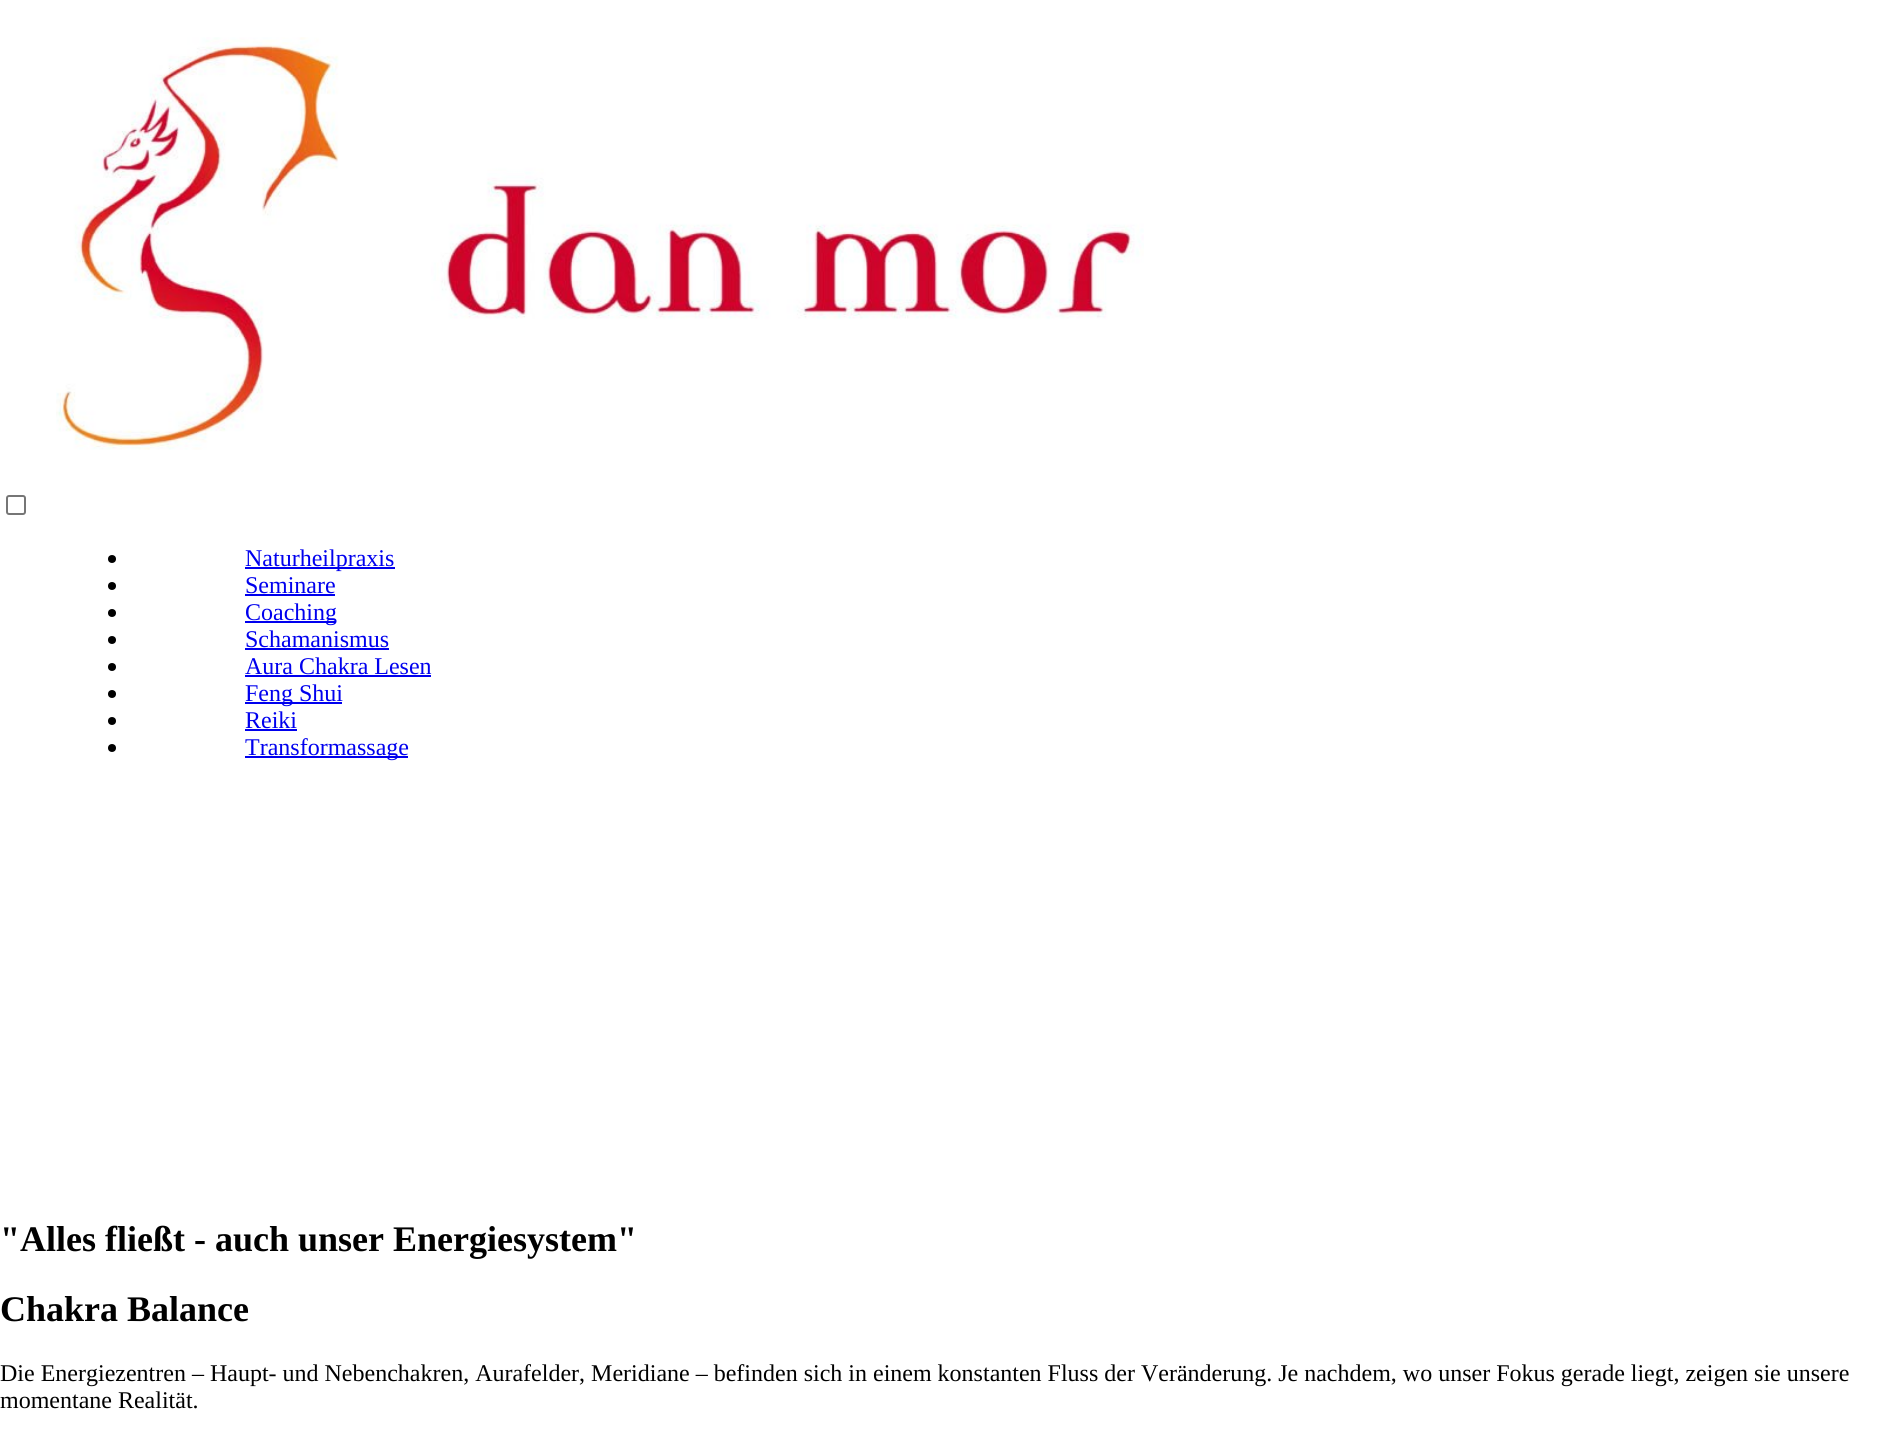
#include <cairo/cairo.h>
#include <math.h>
#include <stddef.h>

typedef struct { double x, y; const char *s; } line_t;
static cairo_t *cr;

static void rgb(unsigned color)
{
	cairo_set_source_rgb(cr, (color >> 16) / 255.0, (color >> 8 & 255) / 255.0, (color & 255) / 255.0);
}

static void rrect(double x, double y, double w, double h, double r)
{
	cairo_new_sub_path(cr);
	cairo_arc(cr, x + w - r, y + h - r, r, 0, M_PI / 2);
	cairo_arc(cr, x + r, y + h - r, r, M_PI / 2, M_PI);
	cairo_arc(cr, x + r, y + r, r, M_PI, 1.5 * M_PI);
	cairo_arc(cr, x + w - r, y + r, r, 1.5 * M_PI, 2 * M_PI);
	cairo_close_path(cr);
}

static void image(const char *path, double x, double y, double w, double h)
{
	cairo_surface_t *image = cairo_image_surface_create_from_png(path);
	cairo_save(cr);
	cairo_set_source_surface(cr, image, x, y);
	cairo_rectangle(cr, x, y, w, h);
	cairo_fill(cr);
	cairo_restore(cr);
	cairo_surface_destroy(image);
}

int main(void) {
	cairo_surface_t *surface = cairo_image_surface_create(CAIRO_FORMAT_RGB24, 1891, 1437);
	cr = cairo_create(surface);
	cairo_font_options_t *options = cairo_font_options_create();
	cairo_font_options_set_hint_metrics(options, CAIRO_HINT_METRICS_OFF);
	cairo_font_options_set_hint_style(options, CAIRO_HINT_STYLE_NONE);
	cairo_set_font_options(cr, options);
	cairo_set_miter_limit(cr, 4);
	rgb(0xffffff);
	cairo_paint(cr);
	image("img/1.png", 56, 37, 1088, 413);
	rrect(7, 496, 18, 18, 2);
	rgb(0x767676);
	cairo_stroke(cr);
	rgb(0x000000);
	cairo_arc(cr, 112, 559, 4, 0, 2 * M_PI);
	cairo_fill(cr);
	rgb(0x0000ee);
	cairo_rectangle(cr, 245, 567, 150, 2);
	cairo_fill(cr);
	rgb(0x000000);
	cairo_arc(cr, 112, 586, 4, 0, 2 * M_PI);
	cairo_fill(cr);
	rgb(0x0000ee);
	cairo_rectangle(cr, 245, 594, 90, 2);
	cairo_fill(cr);
	rgb(0x000000);
	cairo_arc(cr, 112, 613, 4, 0, 2 * M_PI);
	cairo_fill(cr);
	rgb(0x0000ee);
	cairo_rectangle(cr, 245, 621, 91, 2);
	cairo_fill(cr);
	rgb(0x000000);
	cairo_arc(cr, 112, 640, 4, 0, 2 * M_PI);
	cairo_fill(cr);
	rgb(0x0000ee);
	cairo_rectangle(cr, 245, 648, 144, 2);
	cairo_fill(cr);
	rgb(0x000000);
	cairo_arc(cr, 112, 667, 4, 0, 2 * M_PI);
	cairo_fill(cr);
	rgb(0x0000ee);
	cairo_rectangle(cr, 245, 675, 186, 2);
	cairo_fill(cr);
	rgb(0x000000);
	cairo_arc(cr, 112, 694, 4, 0, 2 * M_PI);
	cairo_fill(cr);
	rgb(0x0000ee);
	cairo_rectangle(cr, 245, 702, 97, 2);
	cairo_fill(cr);
	rgb(0x000000);
	cairo_arc(cr, 112, 721, 4, 0, 2 * M_PI);
	cairo_fill(cr);
	rgb(0x0000ee);
	cairo_rectangle(cr, 245, 729, 52, 2);
	cairo_fill(cr);
	rgb(0x000000);
	cairo_arc(cr, 112, 748, 4, 0, 2 * M_PI);
	cairo_fill(cr);
	rgb(0x0000ee);
	cairo_rectangle(cr, 245, 756, 163, 2);
	cairo_fill(cr);
	cairo_select_font_face(cr, "Liberation Serif", CAIRO_FONT_SLANT_NORMAL, CAIRO_FONT_WEIGHT_NORMAL);
	cairo_set_font_size(cr, 24);
	{
		static const line_t items[] = {
			{245, 566, "Naturheilpraxis"},
			{245, 593, "Seminare"},
			{245, 620, "Coaching"},
			{245, 647, "Schamanismus"},
			{245, 674, "Aura Chakra Lesen"},
			{245, 701, "Feng Shui"},
			{245, 728, "Reiki"},
			{245, 755, "Transformassage"},
		};
		for (size_t i = 0; i < sizeof items / sizeof *items; i++) {
			cairo_move_to(cr, items[i].x, items[i].y);
			cairo_show_text(cr, items[i].s);
		}
	}
	cairo_select_font_face(cr, "Liberation Serif", CAIRO_FONT_SLANT_NORMAL, CAIRO_FONT_WEIGHT_BOLD);
	cairo_set_font_size(cr, 36);
	rgb(0x000000);
	cairo_move_to(cr, 0, 1251);
	cairo_show_text(cr, "\"Alles fließt - auch unser Energiesystem\"");
	cairo_move_to(cr, 0, 1321);
	cairo_show_text(cr, "Chakra Balance");
	cairo_select_font_face(cr, "Liberation Serif", CAIRO_FONT_SLANT_NORMAL, CAIRO_FONT_WEIGHT_NORMAL);
	cairo_set_font_size(cr, 24);
	cairo_move_to(cr, 0, 1381);
	cairo_show_text(cr, "Die Energiezentren – Haupt- und Nebenchakren, Aurafelder, Meridiane – befinden sich in einem konstanten Fluss der Veränderung. Je nachdem, wo unser Fokus gerade liegt, zeigen sie unsere");
	cairo_move_to(cr, 0, 1408);
	cairo_show_text(cr, "momentane Realität.");
	cairo_surface_write_to_png(surface, "page.png");
	cairo_font_options_destroy(options);
	cairo_destroy(cr);
	cairo_surface_destroy(surface);
	return 0;
}
